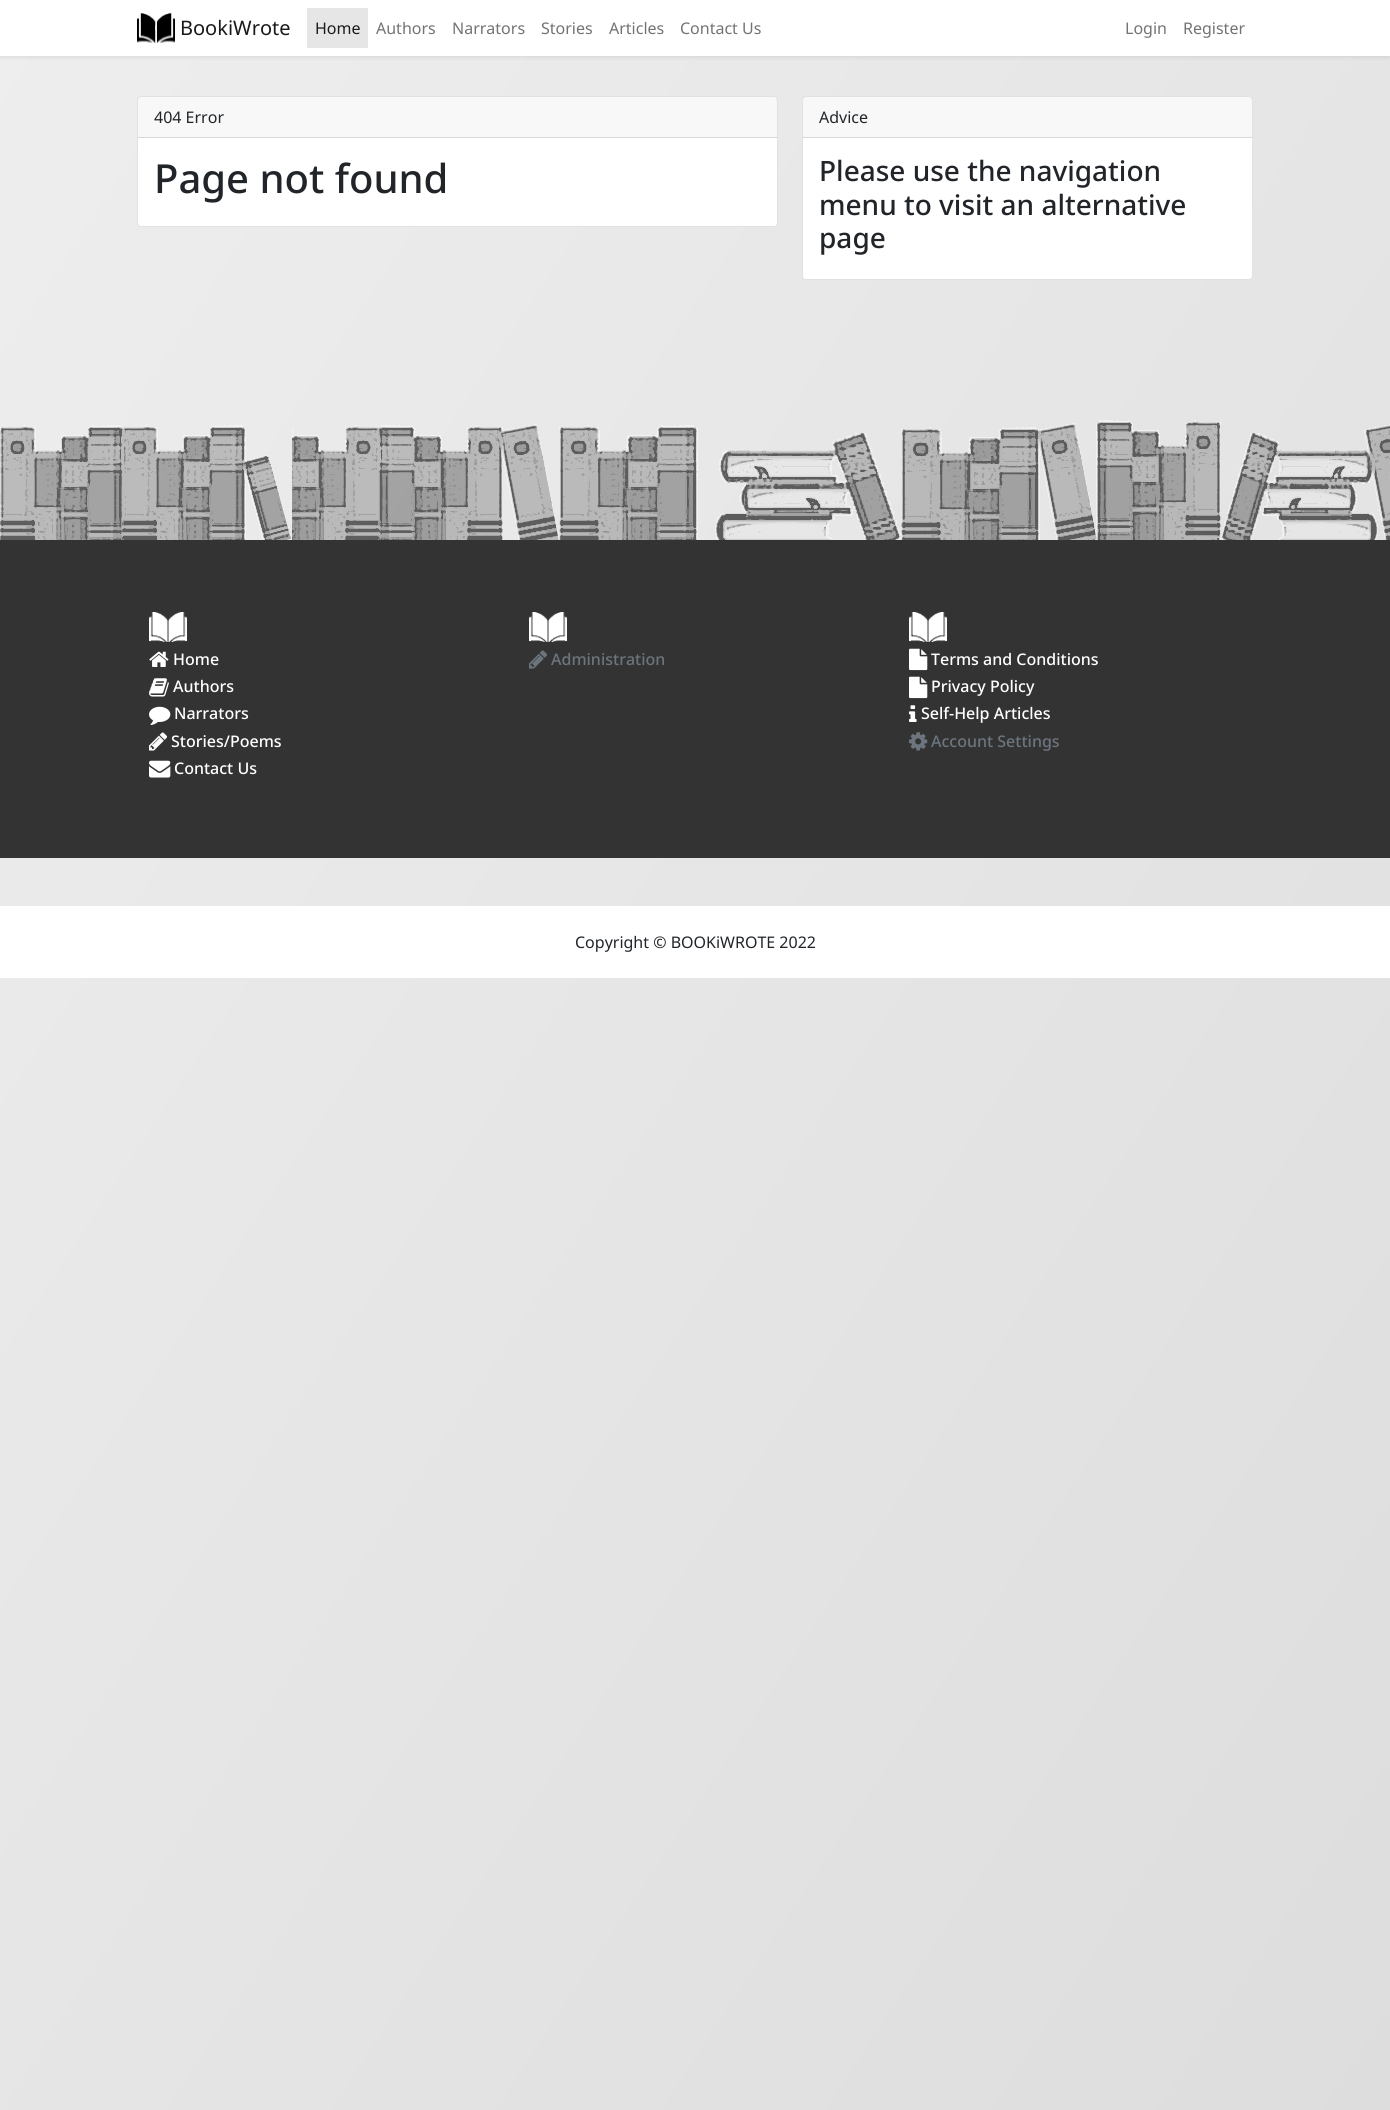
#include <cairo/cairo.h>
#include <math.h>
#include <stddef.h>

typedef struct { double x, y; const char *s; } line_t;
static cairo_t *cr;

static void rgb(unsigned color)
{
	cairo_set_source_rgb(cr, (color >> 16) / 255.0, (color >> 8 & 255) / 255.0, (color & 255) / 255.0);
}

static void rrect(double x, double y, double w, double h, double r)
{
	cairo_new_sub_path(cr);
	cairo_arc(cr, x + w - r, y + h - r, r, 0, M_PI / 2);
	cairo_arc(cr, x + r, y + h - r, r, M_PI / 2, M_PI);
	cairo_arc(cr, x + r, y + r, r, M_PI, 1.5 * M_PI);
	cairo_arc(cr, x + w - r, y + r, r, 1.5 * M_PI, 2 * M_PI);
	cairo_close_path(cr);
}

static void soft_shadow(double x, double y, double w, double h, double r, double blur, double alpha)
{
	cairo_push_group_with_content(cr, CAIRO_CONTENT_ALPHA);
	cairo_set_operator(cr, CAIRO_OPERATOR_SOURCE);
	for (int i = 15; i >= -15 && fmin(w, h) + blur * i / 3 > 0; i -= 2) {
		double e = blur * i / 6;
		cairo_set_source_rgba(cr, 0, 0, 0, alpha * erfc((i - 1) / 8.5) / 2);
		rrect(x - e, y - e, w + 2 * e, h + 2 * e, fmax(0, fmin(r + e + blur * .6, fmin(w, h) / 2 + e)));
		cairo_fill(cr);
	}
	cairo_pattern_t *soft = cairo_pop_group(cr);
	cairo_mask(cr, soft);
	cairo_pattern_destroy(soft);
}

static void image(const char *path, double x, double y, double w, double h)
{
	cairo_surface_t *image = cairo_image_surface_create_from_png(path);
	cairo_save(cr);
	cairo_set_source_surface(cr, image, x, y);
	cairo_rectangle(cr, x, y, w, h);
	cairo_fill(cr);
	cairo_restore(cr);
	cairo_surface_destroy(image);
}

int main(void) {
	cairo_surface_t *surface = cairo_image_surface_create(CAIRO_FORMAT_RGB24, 1390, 2110);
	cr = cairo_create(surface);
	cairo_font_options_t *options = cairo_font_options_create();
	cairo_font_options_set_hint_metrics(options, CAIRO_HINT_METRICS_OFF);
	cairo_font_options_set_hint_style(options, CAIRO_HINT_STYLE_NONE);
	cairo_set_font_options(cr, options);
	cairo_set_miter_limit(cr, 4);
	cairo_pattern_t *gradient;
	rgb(0xffffff);
	cairo_paint(cr);
	gradient = cairo_pattern_create_linear(-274, 416, 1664, 1694);
	cairo_pattern_add_color_stop_rgba(gradient, 0, 0.933, 0.933, 0.933, 1);
	cairo_pattern_add_color_stop_rgba(gradient, 1, 0.867, 0.867, 0.867, 1);
	cairo_set_source(cr, gradient);
	cairo_pattern_destroy(gradient);
	cairo_rectangle(cr, 0, 56, 1390, 2054);
	cairo_fill(cr);
	rgb(0x000000);
	soft_shadow(0, 2, 1390, 56, 0, 2, 0.07);
	rgb(0xffffff);
	cairo_rectangle(cr, 0, 0, 1390, 56);
	cairo_fill(cr);
	image("img/1.png", 137, 13, 38, 30);
	rgb(0xe6e6e6);
	cairo_rectangle(cr, 307, 8, 61, 40);
	cairo_fill(cr);
	rgb(0xffffff);
	rrect(137, 96, 641, 131, 4);
	cairo_fill(cr);
	rrect(137.5, 96.5, 640, 130, 3.5);
	cairo_set_source_rgba(cr, 0, 0, 0, 0.12);
	cairo_set_line_width(cr, 1);
	cairo_stroke(cr);
	cairo_set_source_rgba(cr, 0, 0, 0, 0.03);
	cairo_rectangle(cr, 138, 97, 639, 40);
	cairo_fill(cr);
	rgb(0xd8d8d8);
	cairo_rectangle(cr, 138, 137, 639, 1);
	cairo_fill(cr);
	rgb(0xffffff);
	rrect(802, 96, 451, 184, 4);
	cairo_fill(cr);
	rrect(802.5, 96.5, 450, 183, 3.5);
	cairo_set_source_rgba(cr, 0, 0, 0, 0.12);
	cairo_stroke(cr);
	cairo_set_source_rgba(cr, 0, 0, 0, 0.03);
	cairo_rectangle(cr, 803, 97, 449, 40);
	cairo_fill(cr);
	rgb(0xd8d8d8);
	cairo_rectangle(cr, 803, 137, 449, 1);
	cairo_fill(cr);
	image("img/2.png", 0, 420, 1390, 120);
	rgb(0x333333);
	cairo_rectangle(cr, 0, 540, 1390, 318);
	cairo_fill(cr);
	image("img/3.png", 149, 612, 38, 30);
	image("img/4.png", 149, 651, 20, 16);
	image("img/5.png", 149, 678, 20, 19);
	image("img/6.png", 149, 706, 22, 19);
	image("img/7.png", 149, 732, 18, 19);
	image("img/8.png", 149, 760, 22, 18);
	image("img/9.png", 529, 612, 38, 30);
	image("img/10.png", 529, 650, 18, 19);
	image("img/9.png", 909, 612, 38, 30);
	image("img/11.png", 909, 648, 19, 23);
	image("img/11.png", 909, 676, 19, 23);
	image("img/12.png", 909, 705, 8, 17);
	image("img/13.png", 909, 732, 19, 19);
	rgb(0xffffff);
	cairo_rectangle(cr, 0, 906, 1390, 72);
	cairo_fill(cr);
	cairo_select_font_face(cr, "Noto Sans", CAIRO_FONT_SLANT_NORMAL, CAIRO_FONT_WEIGHT_NORMAL);
	cairo_set_font_size(cr, 20);
	rgb(0x1a1a1a);
	cairo_move_to(cr, 180, 35);
	cairo_show_text(cr, "BookiWrote");
	cairo_set_font_size(cr, 16);
	cairo_move_to(cr, 315, 34);
	cairo_show_text(cr, "Home");
	rgb(0x737373);
	{
		static const line_t items[] = {
			{376, 34, "Authors"},
			{452, 34, "Narrators"},
			{541, 34, "Stories"},
			{609, 34, "Articles"},
			{680, 34, "Contact Us"},
			{1125, 34, "Login"},
			{1183, 34, "Register"},
		};
		for (size_t i = 0; i < sizeof items / sizeof *items; i++) {
			cairo_move_to(cr, items[i].x, items[i].y);
			cairo_show_text(cr, items[i].s);
		}
	}
	rgb(0x212529);
	cairo_move_to(cr, 154, 123);
	cairo_show_text(cr, "404 Error");
	cairo_select_font_face(cr, "Noto Sans Medium", CAIRO_FONT_SLANT_NORMAL, CAIRO_FONT_WEIGHT_NORMAL);
	cairo_set_font_size(cr, 40);
	cairo_move_to(cr, 154, 193);
	cairo_show_text(cr, "Page not found");
	cairo_select_font_face(cr, "Noto Sans", CAIRO_FONT_SLANT_NORMAL, CAIRO_FONT_WEIGHT_NORMAL);
	cairo_set_font_size(cr, 16);
	cairo_move_to(cr, 819, 123);
	cairo_show_text(cr, "Advice");
	cairo_select_font_face(cr, "Noto Sans Medium", CAIRO_FONT_SLANT_NORMAL, CAIRO_FONT_WEIGHT_NORMAL);
	cairo_set_font_size(cr, 28);
	{
		static const line_t items[] = {
			{819, 181, "Please use the navigation"},
			{819, 215, "menu to visit an alternative"},
			{819, 248, "page"},
		};
		for (size_t i = 0; i < sizeof items / sizeof *items; i++) {
			cairo_move_to(cr, items[i].x, items[i].y);
			cairo_show_text(cr, items[i].s);
		}
	}
	cairo_set_font_size(cr, 16);
	rgb(0xffffff);
	{
		static const line_t items[] = {
			{173, 665, "Home"},
			{173, 692, "Authors"},
			{174, 719, "Narrators"},
			{171, 747, "Stories/Poems"},
			{174, 774, "Contact Us"},
		};
		for (size_t i = 0; i < sizeof items / sizeof *items; i++) {
			cairo_move_to(cr, items[i].x, items[i].y);
			cairo_show_text(cr, items[i].s);
		}
	}
	rgb(0x6c757d);
	cairo_move_to(cr, 551, 665);
	cairo_show_text(cr, "Administration");
	rgb(0xffffff);
	{
		static const line_t items[] = {
			{931, 665, "Terms and Conditions"},
			{931, 692, "Privacy Policy"},
			{921, 719, "Self-Help Articles"},
		};
		for (size_t i = 0; i < sizeof items / sizeof *items; i++) {
			cairo_move_to(cr, items[i].x, items[i].y);
			cairo_show_text(cr, items[i].s);
		}
	}
	rgb(0x6c757d);
	cairo_move_to(cr, 931, 747);
	cairo_show_text(cr, "Account Settings");
	cairo_select_font_face(cr, "Noto Sans", CAIRO_FONT_SLANT_NORMAL, CAIRO_FONT_WEIGHT_NORMAL);
	rgb(0x212529);
	cairo_move_to(cr, 575, 948);
	cairo_show_text(cr, "Copyright © BOOKiWROTE 2022");
	cairo_surface_write_to_png(surface, "page.png");
	cairo_font_options_destroy(options);
	cairo_destroy(cr);
	cairo_surface_destroy(surface);
	return 0;
}
